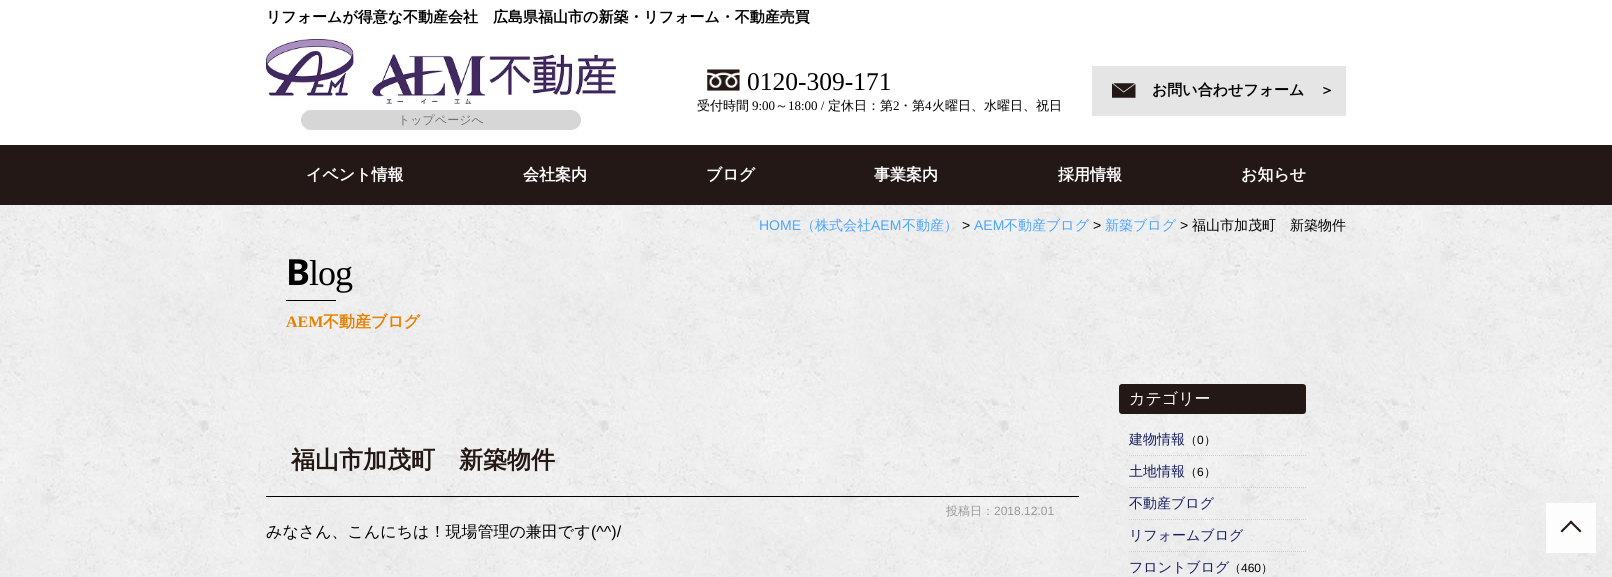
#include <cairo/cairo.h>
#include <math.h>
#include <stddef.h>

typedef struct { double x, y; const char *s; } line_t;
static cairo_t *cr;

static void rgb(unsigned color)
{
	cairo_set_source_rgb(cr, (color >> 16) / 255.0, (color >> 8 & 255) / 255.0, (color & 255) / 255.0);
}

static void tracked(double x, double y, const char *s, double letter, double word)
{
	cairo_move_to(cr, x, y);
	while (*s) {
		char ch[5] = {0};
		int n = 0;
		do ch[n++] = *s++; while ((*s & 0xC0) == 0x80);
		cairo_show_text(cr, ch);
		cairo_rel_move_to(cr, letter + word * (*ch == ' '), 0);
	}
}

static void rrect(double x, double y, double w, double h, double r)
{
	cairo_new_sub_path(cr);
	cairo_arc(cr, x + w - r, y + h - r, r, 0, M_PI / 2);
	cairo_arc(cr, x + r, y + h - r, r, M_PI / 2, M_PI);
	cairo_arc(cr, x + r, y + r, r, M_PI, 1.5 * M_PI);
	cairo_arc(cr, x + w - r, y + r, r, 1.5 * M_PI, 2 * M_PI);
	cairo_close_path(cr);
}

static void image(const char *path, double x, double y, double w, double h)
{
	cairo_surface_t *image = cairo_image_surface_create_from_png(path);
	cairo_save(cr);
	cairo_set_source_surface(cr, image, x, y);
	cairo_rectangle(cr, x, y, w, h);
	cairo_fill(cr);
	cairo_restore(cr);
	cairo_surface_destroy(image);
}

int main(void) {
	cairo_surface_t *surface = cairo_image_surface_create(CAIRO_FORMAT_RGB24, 1612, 577);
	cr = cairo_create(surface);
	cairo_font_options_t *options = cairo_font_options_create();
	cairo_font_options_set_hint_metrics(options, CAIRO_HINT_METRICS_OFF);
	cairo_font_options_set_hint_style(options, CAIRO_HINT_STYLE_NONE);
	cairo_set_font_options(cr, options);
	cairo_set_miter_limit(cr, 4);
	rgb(0xffffff);
	cairo_paint(cr);
	image("img/1.png", 707, 69, 33, 22);
	rgb(0xe5e5e5);
	cairo_rectangle(cr, 1092, 66, 254, 50);
	cairo_fill(cr);
	image("img/2.png", 1112, 83, 24, 15);
	image("img/3.png", 266, 39, 350, 65);
	rgb(0xd6d6d7);
	rrect(301, 110, 280, 20, 10);
	cairo_fill(cr);
	rgb(0x231815);
	cairo_rectangle(cr, 0, 145, 1612, 60);
	cairo_fill(cr);
	image("img/4.png", 0, 205, 1612, 372);
	rgb(0x000000);
	cairo_rectangle(cr, 286, 300, 50, 1);
	cairo_fill(cr);
	cairo_rectangle(cr, 266, 496, 813, 1);
	cairo_fill(cr);
	rgb(0x231815);
	rrect(1119, 384, 187, 30, 3);
	cairo_fill(cr);
	cairo_new_path(cr);
	cairo_move_to(cr, 1129, 455.5);
	cairo_line_to(cr, 1306, 455.5);
	rgb(0xcccccc);
	cairo_set_line_width(cr, 1);
	cairo_set_dash(cr, (double[]){1, 1}, 2, 0);
	cairo_stroke(cr);
	cairo_new_path(cr);
	cairo_move_to(cr, 1129, 487.5);
	cairo_line_to(cr, 1306, 487.5);
	cairo_stroke(cr);
	cairo_new_path(cr);
	cairo_move_to(cr, 1129, 519.5);
	cairo_line_to(cr, 1306, 519.5);
	cairo_stroke(cr);
	cairo_new_path(cr);
	cairo_move_to(cr, 1129, 551.5);
	cairo_line_to(cr, 1306, 551.5);
	cairo_stroke(cr);
	cairo_set_source_rgba(cr, 1, 1, 1, 0.9);
	cairo_rectangle(cr, 1546, 503, 50, 50);
	cairo_fill(cr);
	rgb(0x231815);
	cairo_new_path(cr);
	cairo_move_to(cr, 1560.5, 531);
	cairo_line_to(cr, 1571, 520.5);
	cairo_line_to(cr, 1572.5, 522);
	cairo_line_to(cr, 1562, 532.5);
	cairo_close_path(cr);
	cairo_fill(cr);
	cairo_new_path(cr);
	cairo_move_to(cr, 1569.5, 522);
	cairo_line_to(cr, 1571, 520.5);
	cairo_line_to(cr, 1581.5, 531);
	cairo_line_to(cr, 1580, 532.5);
	cairo_close_path(cr);
	cairo_fill(cr);
	cairo_select_font_face(cr, "WenQuanYi Zen Hei", CAIRO_FONT_SLANT_NORMAL, CAIRO_FONT_WEIGHT_BOLD);
	cairo_set_font_size(cr, 15);
	rgb(0x000000);
	cairo_move_to(cr, 266, 22);
	cairo_show_text(cr, "リフォームが得意な不動産会社　広島県福山市の新築・リフォーム・不動産売買");
	cairo_select_font_face(cr, "Liberation Serif", CAIRO_FONT_SLANT_NORMAL, CAIRO_FONT_WEIGHT_NORMAL);
	cairo_set_font_size(cr, 25.5);
	cairo_move_to(cr, 747, 90);
	cairo_show_text(cr, "0120-309-171");
	cairo_select_font_face(cr, "WenQuanYi Zen Hei Medium", CAIRO_FONT_SLANT_NORMAL, CAIRO_FONT_WEIGHT_NORMAL);
	cairo_set_font_size(cr, 13);
	cairo_move_to(cr, 697, 110);
	cairo_show_text(cr, "受付時間");
	cairo_select_font_face(cr, "Liberation Serif", CAIRO_FONT_SLANT_NORMAL, CAIRO_FONT_WEIGHT_NORMAL);
	cairo_move_to(cr, 752, 110);
	cairo_show_text(cr, "9:00");
	cairo_select_font_face(cr, "WenQuanYi Zen Hei Medium", CAIRO_FONT_SLANT_NORMAL, CAIRO_FONT_WEIGHT_NORMAL);
	cairo_move_to(cr, 775, 110);
	cairo_show_text(cr, "～");
	cairo_select_font_face(cr, "Liberation Serif", CAIRO_FONT_SLANT_NORMAL, CAIRO_FONT_WEIGHT_NORMAL);
	cairo_move_to(cr, 788, 110);
	cairo_show_text(cr, "18:00 /");
	cairo_select_font_face(cr, "WenQuanYi Zen Hei Medium", CAIRO_FONT_SLANT_NORMAL, CAIRO_FONT_WEIGHT_NORMAL);
	cairo_move_to(cr, 828, 110);
	cairo_show_text(cr, "定休日：第");
	cairo_select_font_face(cr, "Liberation Serif", CAIRO_FONT_SLANT_NORMAL, CAIRO_FONT_WEIGHT_NORMAL);
	cairo_move_to(cr, 893, 110);
	cairo_show_text(cr, "2");
	cairo_select_font_face(cr, "WenQuanYi Zen Hei Medium", CAIRO_FONT_SLANT_NORMAL, CAIRO_FONT_WEIGHT_NORMAL);
	cairo_move_to(cr, 899, 110);
	cairo_show_text(cr, "・第");
	cairo_select_font_face(cr, "Liberation Serif", CAIRO_FONT_SLANT_NORMAL, CAIRO_FONT_WEIGHT_NORMAL);
	cairo_move_to(cr, 925, 110);
	cairo_show_text(cr, "4");
	cairo_select_font_face(cr, "WenQuanYi Zen Hei Medium", CAIRO_FONT_SLANT_NORMAL, CAIRO_FONT_WEIGHT_NORMAL);
	cairo_move_to(cr, 932, 110);
	cairo_show_text(cr, "火曜日、水曜日、祝日");
	cairo_select_font_face(cr, "WenQuanYi Zen Hei", CAIRO_FONT_SLANT_NORMAL, CAIRO_FONT_WEIGHT_BOLD);
	cairo_set_font_size(cr, 15);
	cairo_move_to(cr, 1152, 95);
	cairo_show_text(cr, "お問い合わせフォーム　＞");
	cairo_select_font_face(cr, "WenQuanYi Zen Hei Medium", CAIRO_FONT_SLANT_NORMAL, CAIRO_FONT_WEIGHT_NORMAL);
	cairo_set_font_size(cr, 12);
	rgb(0x717071);
	cairo_move_to(cr, 398, 124);
	cairo_show_text(cr, "トップページへ");
	cairo_select_font_face(cr, "WenQuanYi Zen Hei", CAIRO_FONT_SLANT_NORMAL, CAIRO_FONT_WEIGHT_BOLD);
	cairo_set_font_size(cr, 16);
	rgb(0xffffff);
	{
		static const line_t items[] = {
			{306, 180, "イベント情報"},
			{523, 180, "会社案内"},
			{706, 180, "ブログ"},
			{874, 180, "事業案内"},
			{1058, 180, "採用情報"},
			{1241, 180, "お知らせ"},
		};
		for (size_t i = 0; i < sizeof items / sizeof *items; i++) {
			cairo_move_to(cr, items[i].x, items[i].y);
			cairo_show_text(cr, items[i].s);
		}
	}
	cairo_select_font_face(cr, "Liberation Sans", CAIRO_FONT_SLANT_NORMAL, CAIRO_FONT_WEIGHT_NORMAL);
	cairo_set_font_size(cr, 14);
	rgb(0x4da6ff);
	cairo_move_to(cr, 759, 230);
	cairo_show_text(cr, "HOME");
	cairo_select_font_face(cr, "WenQuanYi Zen Hei Medium", CAIRO_FONT_SLANT_NORMAL, CAIRO_FONT_WEIGHT_NORMAL);
	cairo_move_to(cr, 801, 230);
	cairo_show_text(cr, "（株式会社");
	cairo_select_font_face(cr, "Liberation Sans", CAIRO_FONT_SLANT_NORMAL, CAIRO_FONT_WEIGHT_NORMAL);
	cairo_move_to(cr, 871, 230);
	cairo_show_text(cr, "AEM");
	cairo_select_font_face(cr, "WenQuanYi Zen Hei Medium", CAIRO_FONT_SLANT_NORMAL, CAIRO_FONT_WEIGHT_NORMAL);
	cairo_move_to(cr, 902, 230);
	cairo_show_text(cr, "不動産）");
	cairo_select_font_face(cr, "Liberation Sans", CAIRO_FONT_SLANT_NORMAL, CAIRO_FONT_WEIGHT_NORMAL);
	rgb(0x000000);
	cairo_move_to(cr, 962, 230);
	cairo_show_text(cr, ">");
	rgb(0x4da6ff);
	cairo_move_to(cr, 974, 230);
	cairo_show_text(cr, "AEM");
	cairo_select_font_face(cr, "WenQuanYi Zen Hei Medium", CAIRO_FONT_SLANT_NORMAL, CAIRO_FONT_WEIGHT_NORMAL);
	cairo_move_to(cr, 1004, 230);
	cairo_show_text(cr, "不動産ブログ");
	cairo_select_font_face(cr, "Liberation Sans", CAIRO_FONT_SLANT_NORMAL, CAIRO_FONT_WEIGHT_NORMAL);
	rgb(0x000000);
	cairo_move_to(cr, 1093, 230);
	cairo_show_text(cr, ">");
	cairo_select_font_face(cr, "WenQuanYi Zen Hei Medium", CAIRO_FONT_SLANT_NORMAL, CAIRO_FONT_WEIGHT_NORMAL);
	rgb(0x4da6ff);
	cairo_move_to(cr, 1105, 230);
	cairo_show_text(cr, "新築ブログ");
	cairo_select_font_face(cr, "Liberation Sans", CAIRO_FONT_SLANT_NORMAL, CAIRO_FONT_WEIGHT_NORMAL);
	rgb(0x000000);
	cairo_move_to(cr, 1180, 230);
	cairo_show_text(cr, ">");
	cairo_select_font_face(cr, "WenQuanYi Zen Hei Medium", CAIRO_FONT_SLANT_NORMAL, CAIRO_FONT_WEIGHT_NORMAL);
	cairo_move_to(cr, 1192, 230);
	cairo_show_text(cr, "福山市加茂町　新築物件");
	cairo_select_font_face(cr, "Noto Sans", CAIRO_FONT_SLANT_NORMAL, CAIRO_FONT_WEIGHT_BOLD);
	cairo_set_font_size(cr, 36);
	tracked(286, 285, "B", -1, 0);
	cairo_select_font_face(cr, "Liberation Serif", CAIRO_FONT_SLANT_NORMAL, CAIRO_FONT_WEIGHT_NORMAL);
	tracked(309, 285, "log", -1, 0);
	cairo_select_font_face(cr, "Liberation Serif", CAIRO_FONT_SLANT_NORMAL, CAIRO_FONT_WEIGHT_BOLD);
	cairo_set_font_size(cr, 16);
	rgb(0xe68000);
	cairo_move_to(cr, 286, 327);
	cairo_show_text(cr, "AEM");
	cairo_select_font_face(cr, "WenQuanYi Zen Hei", CAIRO_FONT_SLANT_NORMAL, CAIRO_FONT_WEIGHT_BOLD);
	cairo_move_to(cr, 323, 327);
	cairo_show_text(cr, "不動産ブログ");
	cairo_set_font_size(cr, 24);
	rgb(0x231815);
	cairo_move_to(cr, 291, 468);
	cairo_show_text(cr, "福山市加茂町　新築物件");
	cairo_select_font_face(cr, "WenQuanYi Zen Hei Medium", CAIRO_FONT_SLANT_NORMAL, CAIRO_FONT_WEIGHT_NORMAL);
	cairo_set_font_size(cr, 12);
	rgb(0x999999);
	cairo_move_to(cr, 946, 515);
	cairo_show_text(cr, "投稿日：");
	cairo_select_font_face(cr, "Liberation Sans", CAIRO_FONT_SLANT_NORMAL, CAIRO_FONT_WEIGHT_NORMAL);
	cairo_move_to(cr, 994, 515);
	cairo_show_text(cr, "2018.12.01");
	cairo_select_font_face(cr, "WenQuanYi Zen Hei Medium", CAIRO_FONT_SLANT_NORMAL, CAIRO_FONT_WEIGHT_NORMAL);
	cairo_set_font_size(cr, 16);
	rgb(0x000000);
	cairo_move_to(cr, 266, 537);
	cairo_show_text(cr, "みなさん、こんにちは！現場管理の兼田です");
	cairo_select_font_face(cr, "Liberation Sans", CAIRO_FONT_SLANT_NORMAL, CAIRO_FONT_WEIGHT_NORMAL);
	cairo_move_to(cr, 591, 537);
	cairo_show_text(cr, "(^^)/");
	cairo_select_font_face(cr, "WenQuanYi Zen Hei Medium", CAIRO_FONT_SLANT_NORMAL, CAIRO_FONT_WEIGHT_NORMAL);
	rgb(0xffffff);
	cairo_move_to(cr, 1129, 404);
	cairo_show_text(cr, "カテゴリー");
	cairo_set_font_size(cr, 14);
	rgb(0x171c61);
	cairo_move_to(cr, 1129, 444);
	cairo_show_text(cr, "建物情報");
	cairo_set_font_size(cr, 12);
	rgb(0x000000);
	cairo_move_to(cr, 1185, 444);
	cairo_show_text(cr, "（");
	cairo_select_font_face(cr, "Liberation Sans", CAIRO_FONT_SLANT_NORMAL, CAIRO_FONT_WEIGHT_NORMAL);
	cairo_move_to(cr, 1197, 444);
	cairo_show_text(cr, "0");
	cairo_select_font_face(cr, "WenQuanYi Zen Hei Medium", CAIRO_FONT_SLANT_NORMAL, CAIRO_FONT_WEIGHT_NORMAL);
	cairo_move_to(cr, 1204, 444);
	cairo_show_text(cr, "）");
	cairo_set_font_size(cr, 14);
	rgb(0x171c61);
	cairo_move_to(cr, 1129, 476);
	cairo_show_text(cr, "土地情報");
	cairo_set_font_size(cr, 12);
	rgb(0x000000);
	cairo_move_to(cr, 1185, 476);
	cairo_show_text(cr, "（");
	cairo_select_font_face(cr, "Liberation Sans", CAIRO_FONT_SLANT_NORMAL, CAIRO_FONT_WEIGHT_NORMAL);
	cairo_move_to(cr, 1197, 476);
	cairo_show_text(cr, "6");
	cairo_select_font_face(cr, "WenQuanYi Zen Hei Medium", CAIRO_FONT_SLANT_NORMAL, CAIRO_FONT_WEIGHT_NORMAL);
	cairo_move_to(cr, 1204, 476);
	cairo_show_text(cr, "）");
	cairo_set_font_size(cr, 14);
	rgb(0x171c61);
	{
		static const line_t items[] = {
			{1129, 508, "不動産ブログ"},
			{1129, 540, "リフォームブログ"},
			{1129, 572, "フロントブログ"},
		};
		for (size_t i = 0; i < sizeof items / sizeof *items; i++) {
			cairo_move_to(cr, items[i].x, items[i].y);
			cairo_show_text(cr, items[i].s);
		}
	}
	cairo_set_font_size(cr, 12);
	rgb(0x000000);
	cairo_move_to(cr, 1229, 572);
	cairo_show_text(cr, "（");
	cairo_select_font_face(cr, "Liberation Sans", CAIRO_FONT_SLANT_NORMAL, CAIRO_FONT_WEIGHT_NORMAL);
	cairo_move_to(cr, 1241, 572);
	cairo_show_text(cr, "460");
	cairo_select_font_face(cr, "WenQuanYi Zen Hei Medium", CAIRO_FONT_SLANT_NORMAL, CAIRO_FONT_WEIGHT_NORMAL);
	cairo_move_to(cr, 1261, 572);
	cairo_show_text(cr, "）");
	cairo_surface_write_to_png(surface, "page.png");
	cairo_font_options_destroy(options);
	cairo_destroy(cr);
	cairo_surface_destroy(surface);
	return 0;
}
